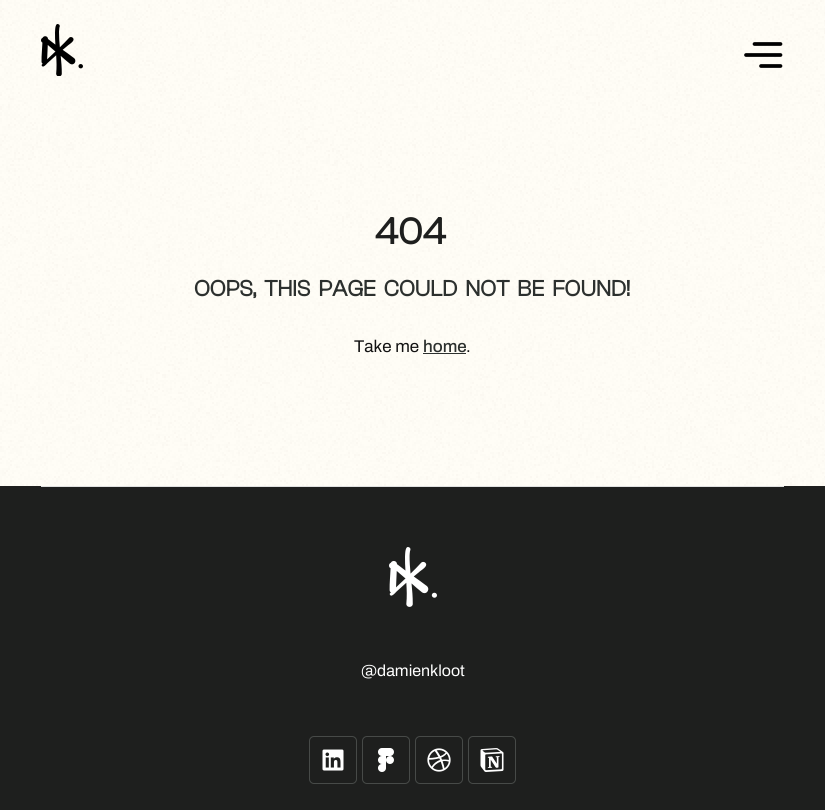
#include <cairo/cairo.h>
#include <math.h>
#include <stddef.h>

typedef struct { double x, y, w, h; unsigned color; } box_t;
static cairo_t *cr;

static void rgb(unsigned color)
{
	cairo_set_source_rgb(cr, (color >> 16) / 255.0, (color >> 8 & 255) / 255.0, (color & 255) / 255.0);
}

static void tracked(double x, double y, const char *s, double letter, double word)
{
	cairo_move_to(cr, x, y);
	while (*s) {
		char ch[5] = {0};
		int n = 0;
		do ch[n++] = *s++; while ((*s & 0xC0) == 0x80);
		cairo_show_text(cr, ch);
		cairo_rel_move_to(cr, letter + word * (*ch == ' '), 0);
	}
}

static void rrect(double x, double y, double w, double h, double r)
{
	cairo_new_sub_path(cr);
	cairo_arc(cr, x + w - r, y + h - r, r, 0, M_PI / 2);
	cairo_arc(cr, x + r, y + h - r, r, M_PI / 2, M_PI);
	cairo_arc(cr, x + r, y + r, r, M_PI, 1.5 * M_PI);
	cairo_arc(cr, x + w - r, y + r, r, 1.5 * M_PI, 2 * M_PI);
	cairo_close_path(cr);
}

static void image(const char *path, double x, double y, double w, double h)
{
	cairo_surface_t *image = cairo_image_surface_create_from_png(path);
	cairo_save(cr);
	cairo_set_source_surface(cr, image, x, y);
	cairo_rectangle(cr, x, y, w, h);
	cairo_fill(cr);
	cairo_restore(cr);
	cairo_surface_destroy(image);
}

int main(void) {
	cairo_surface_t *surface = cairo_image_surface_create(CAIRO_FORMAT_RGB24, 825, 810);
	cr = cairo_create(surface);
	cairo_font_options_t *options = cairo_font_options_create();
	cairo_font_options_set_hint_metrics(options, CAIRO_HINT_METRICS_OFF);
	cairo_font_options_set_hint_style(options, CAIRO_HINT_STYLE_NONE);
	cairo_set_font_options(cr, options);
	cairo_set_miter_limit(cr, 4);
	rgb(0xfffdf6);
	cairo_paint(cr);
	image("img/1.png", 0, 0, 825, 486);
	image("img/2.png", 41, 24, 42, 52);
	cairo_new_path(cr);
	cairo_move_to(cr, 780.5, 66);
	cairo_line_to(cr, 761, 66);
	cairo_move_to(cr, 780.5, 55);
	cairo_line_to(cr, 746, 55);
	cairo_move_to(cr, 780.5, 44);
	cairo_line_to(cr, 754.5, 44);
	rgb(0x000000);
	cairo_set_line_width(cr, 3.7);
	cairo_set_line_cap(cr, CAIRO_LINE_CAP_ROUND);
	cairo_stroke(cr);
	{
		static const box_t items[] = {
			{423, 353, 43, 1, 0x2c302e},
			{0, 486, 825, 324, 0x1e1f1e},
			{41, 486, 743, 1, 0xe0e1e0},
		};
		for (size_t i = 0; i < sizeof items / sizeof *items; i++) {
			rgb(items[i].color);
			cairo_rectangle(cr, items[i].x, items[i].y, items[i].w, items[i].h);
			cairo_fill(cr);
		}
	}
	image("img/3.png", 389, 547, 48, 60);
	rrect(309.5, 736.5, 47, 47, 4.5);
	rgb(0x474a48);
	cairo_set_line_width(cr, 1);
	cairo_set_line_cap(cr, CAIRO_LINE_CAP_BUTT);
	cairo_stroke(cr);
	image("img/4.png", 322, 749, 22, 22);
	rrect(362.5, 736.5, 47, 47, 4.5);
	cairo_stroke(cr);
	image("img/5.png", 378, 748, 16, 24);
	rrect(415.5, 736.5, 47, 47, 4.5);
	cairo_stroke(cr);
	image("img/6.png", 427, 748, 24, 24);
	rrect(468.5, 736.5, 47, 47, 4.5);
	cairo_stroke(cr);
	image("img/7.png", 480, 748, 24, 24);
	cairo_select_font_face(cr, "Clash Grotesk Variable", CAIRO_FONT_SLANT_NORMAL, CAIRO_FONT_WEIGHT_BOLD);
	cairo_set_font_size(cr, 38);
	rgb(0x1e1f1e);
	cairo_move_to(cr, 375, 244);
	cairo_show_text(cr, "404");
	cairo_set_font_size(cr, 23);
	rgb(0x2c302e);
	tracked(194, 296, "OOPS, THIS PAGE COULD NOT BE FOUND!", 0, 3.75);
	cairo_select_font_face(cr, "Archivo", CAIRO_FONT_SLANT_NORMAL, CAIRO_FONT_WEIGHT_NORMAL);
	cairo_set_font_size(cr, 17);
	rgb(0x121212);
	cairo_move_to(cr, 354, 352);
	cairo_show_text(cr, "Take me");
	cairo_select_font_face(cr, "Archivo Medium", CAIRO_FONT_SLANT_NORMAL, CAIRO_FONT_WEIGHT_NORMAL);
	rgb(0x2c302e);
	cairo_move_to(cr, 423, 352);
	cairo_show_text(cr, "home");
	cairo_select_font_face(cr, "Archivo", CAIRO_FONT_SLANT_NORMAL, CAIRO_FONT_WEIGHT_NORMAL);
	rgb(0x121212);
	cairo_move_to(cr, 466, 352);
	cairo_show_text(cr, ".");
	cairo_set_font_size(cr, 16);
	rgb(0xffffff);
	cairo_move_to(cr, 361, 676);
	cairo_show_text(cr, "@damienkloot");
	cairo_surface_write_to_png(surface, "page.png");
	cairo_font_options_destroy(options);
	cairo_destroy(cr);
	cairo_surface_destroy(surface);
	return 0;
}
